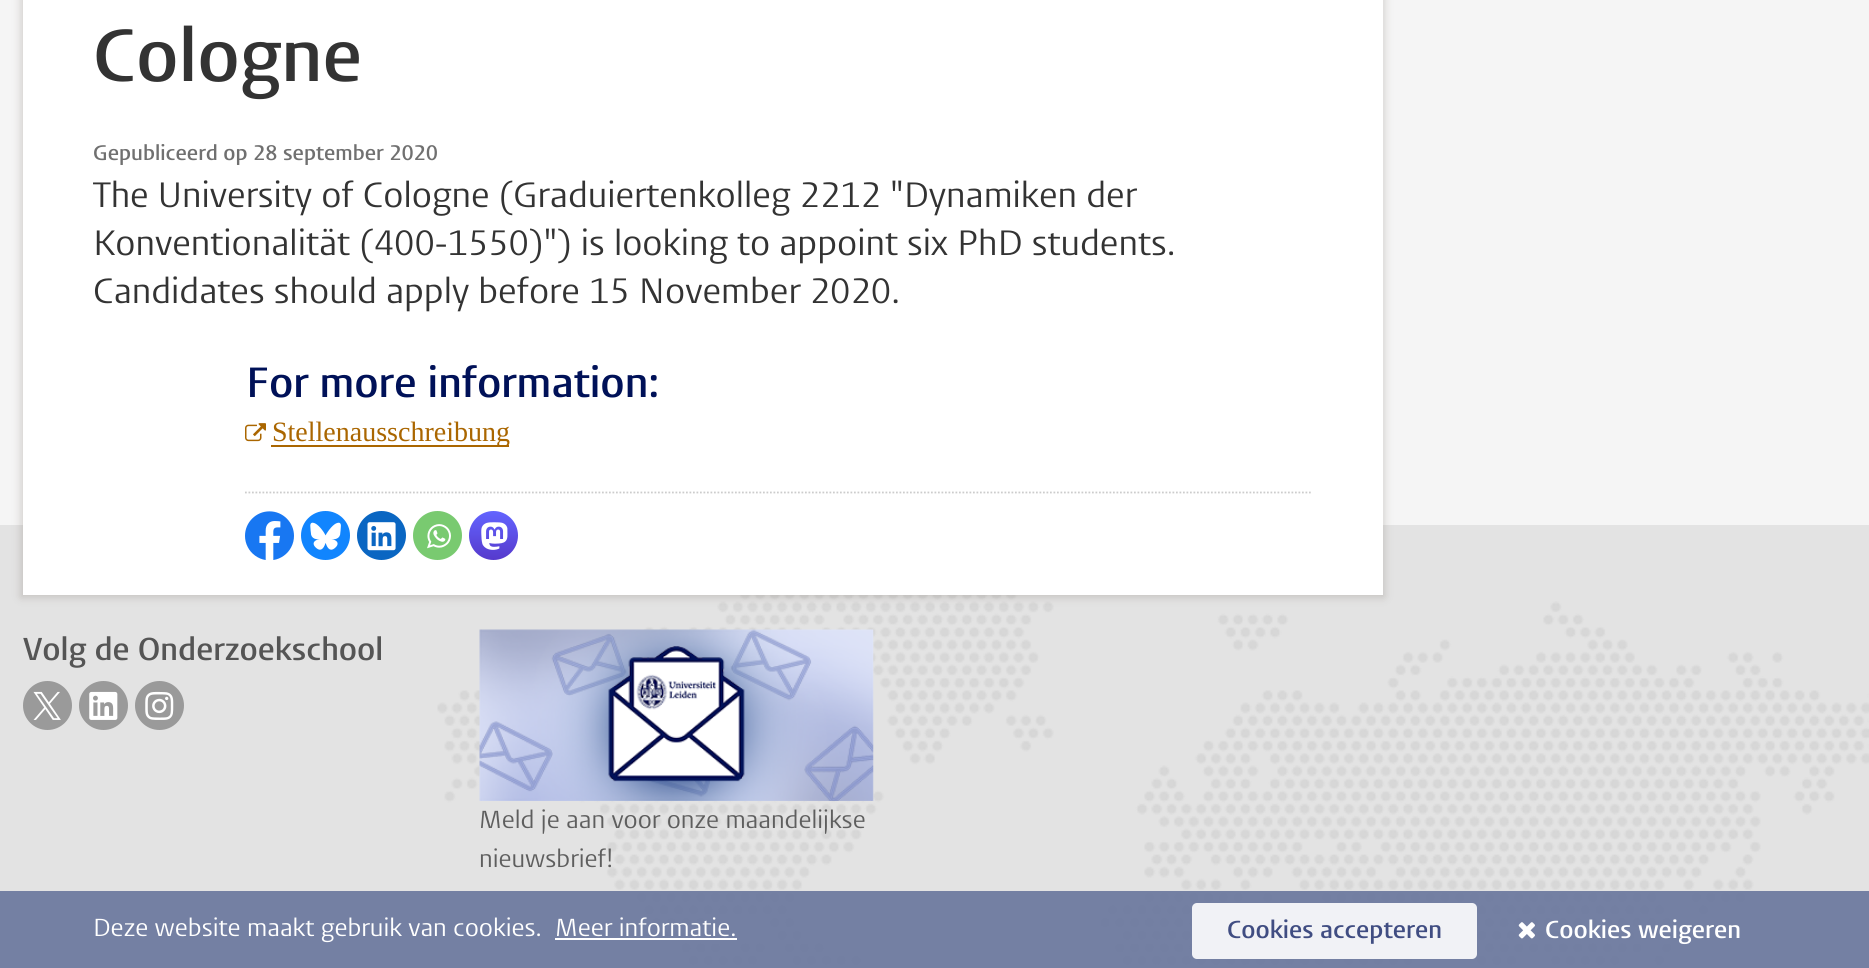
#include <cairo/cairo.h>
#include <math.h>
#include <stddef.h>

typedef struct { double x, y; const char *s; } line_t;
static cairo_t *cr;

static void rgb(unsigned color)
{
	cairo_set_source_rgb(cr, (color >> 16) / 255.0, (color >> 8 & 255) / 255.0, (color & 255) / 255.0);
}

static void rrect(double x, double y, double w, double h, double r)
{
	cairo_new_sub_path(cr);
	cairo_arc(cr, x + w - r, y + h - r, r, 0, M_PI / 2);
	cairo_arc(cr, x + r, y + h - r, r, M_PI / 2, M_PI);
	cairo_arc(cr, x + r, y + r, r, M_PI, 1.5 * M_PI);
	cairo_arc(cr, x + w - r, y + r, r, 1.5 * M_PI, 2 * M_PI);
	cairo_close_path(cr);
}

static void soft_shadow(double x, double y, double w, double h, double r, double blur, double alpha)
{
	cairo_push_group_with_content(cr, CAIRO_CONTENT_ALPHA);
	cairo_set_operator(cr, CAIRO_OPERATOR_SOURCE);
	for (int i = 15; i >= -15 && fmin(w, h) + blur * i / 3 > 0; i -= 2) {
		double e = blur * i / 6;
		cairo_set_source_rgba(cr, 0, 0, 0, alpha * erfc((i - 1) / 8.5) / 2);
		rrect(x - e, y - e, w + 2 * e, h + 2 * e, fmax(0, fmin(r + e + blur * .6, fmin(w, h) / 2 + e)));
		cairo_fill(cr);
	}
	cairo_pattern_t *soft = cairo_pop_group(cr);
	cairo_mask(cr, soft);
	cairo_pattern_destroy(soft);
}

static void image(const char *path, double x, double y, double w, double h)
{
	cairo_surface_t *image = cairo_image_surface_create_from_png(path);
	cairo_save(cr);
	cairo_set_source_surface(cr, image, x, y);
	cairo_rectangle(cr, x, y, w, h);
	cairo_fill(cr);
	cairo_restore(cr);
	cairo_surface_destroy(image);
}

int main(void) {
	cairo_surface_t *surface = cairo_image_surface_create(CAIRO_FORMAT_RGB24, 1869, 968);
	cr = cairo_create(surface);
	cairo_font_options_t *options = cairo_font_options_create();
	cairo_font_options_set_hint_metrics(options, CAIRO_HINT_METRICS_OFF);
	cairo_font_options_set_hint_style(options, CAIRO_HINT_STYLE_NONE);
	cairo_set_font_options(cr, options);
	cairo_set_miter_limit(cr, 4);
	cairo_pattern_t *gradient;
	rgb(0xf5f5f5);
	cairo_paint(cr);
	rgb(0xe3e3e3);
	cairo_rectangle(cr, 0, 525, 1869, 443);
	cairo_fill(cr);
	image("img/7.png", 437, 595, 1432, 370);
	rgb(0x786e64);
	soft_shadow(21, -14, 1363, 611, 0, 4.5, 0.3);
	rgb(0xffffff);
	cairo_rectangle(cr, 23, 0, 1360, 595);
	cairo_fill(cr);
	image("img/1.png", 245, 423, 21, 19);
	rgb(0xaa6600);
	cairo_rectangle(cr, 271, 445, 238, 2);
	cairo_fill(cr);
	cairo_new_path(cr);
	cairo_move_to(cr, 245, 492.5);
	cairo_line_to(cr, 1312.5, 492.5);
	rgb(0xcccccc);
	cairo_set_line_width(cr, 1.8);
	cairo_set_dash(cr, (double[]){1.75, 1.75}, 2, 0);
	cairo_stroke(cr);
	image("img/2.png", 245, 511, 49, 49);
	rgb(0x1185fe);
	cairo_arc(cr, 325.5, 535.5, 24.5, 0, 2 * M_PI);
	cairo_fill(cr);
	image("img/3.png", 310, 522, 31, 28);
	rgb(0x0a66c2);
	cairo_arc(cr, 381.5, 535.5, 24.5, 0, 2 * M_PI);
	cairo_fill(cr);
	image("img/4.png", 367, 522, 29, 29);
	rgb(0x79ca70);
	cairo_arc(cr, 437.5, 535.5, 24.5, 0, 2 * M_PI);
	cairo_fill(cr);
	image("img/5.png", 427, 524, 24, 25);
	gradient = cairo_pattern_create_linear(494, 511, 494, 560);
	cairo_pattern_add_color_stop_rgba(gradient, 0, 0.388, 0.392, 1, 1);
	cairo_pattern_add_color_stop_rgba(gradient, 1, 0.337, 0.227, 0.8, 1);
	cairo_set_source(cr, gradient);
	cairo_pattern_destroy(gradient);
	cairo_arc(cr, 493.5, 535.5, 24.5, 0, 2 * M_PI);
	cairo_fill(cr);
	image("img/6.png", 481, 522, 27, 28);
	rgb(0x9a9a9a);
	cairo_arc(cr, 47.5, 705.5, 24.5, 0, 2 * M_PI);
	cairo_fill(cr);
	image("img/8.png", 33, 691, 28, 29);
	cairo_arc(cr, 103.5, 705.5, 24.5, 0, 2 * M_PI);
	cairo_fill(cr);
	image("img/9.png", 89, 691, 29, 29);
	cairo_arc(cr, 159.5, 705.5, 24.5, 0, 2 * M_PI);
	cairo_fill(cr);
	image("img/10.png", 145, 691, 29, 29);
	image("img/11.png", 479, 629, 395, 172);
	cairo_set_source_rgba(cr, 0.408, 0.463, 0.612, 0.9);
	cairo_rectangle(cr, 0, 891, 1869, 77);
	cairo_fill(cr);
	rgb(0xffffff);
	cairo_rectangle(cr, 555, 938, 182, 2);
	cairo_fill(cr);
	rgb(0xf1f2f6);
	rrect(1192, 903, 285, 56, 5);
	cairo_fill(cr);
	image("img/12.png", 1518, 922, 17, 17);
	cairo_select_font_face(cr, "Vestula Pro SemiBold", CAIRO_FONT_SLANT_NORMAL, CAIRO_FONT_WEIGHT_NORMAL);
	cairo_set_font_size(cr, 73.5);
	rgb(0x333333);
	cairo_move_to(cr, 93, 81);
	cairo_show_text(cr, "Cologne");
	cairo_set_font_size(cr, 21);
	rgb(0x707070);
	cairo_move_to(cr, 93, 160);
	cairo_show_text(cr, "Gepubliceerd op 28 september 2020");
	cairo_select_font_face(cr, "Vestula Pro", CAIRO_FONT_SLANT_NORMAL, CAIRO_FONT_WEIGHT_NORMAL);
	cairo_set_font_size(cr, 35);
	rgb(0x333333);
	{
		static const line_t items[] = {
			{93, 207, "The University of Cologne (Graduiertenkolleg 2212 \"Dynamiken der"},
			{93, 255, "Konventionalität (400-1550)\") is looking to appoint six PhD students."},
			{93, 303, "Candidates should apply before 15 November 2020."},
		};
		for (size_t i = 0; i < sizeof items / sizeof *items; i++) {
			cairo_move_to(cr, items[i].x, items[i].y);
			cairo_show_text(cr, items[i].s);
		}
	}
	cairo_select_font_face(cr, "Vestula Pro SemiBold", CAIRO_FONT_SLANT_NORMAL, CAIRO_FONT_WEIGHT_NORMAL);
	cairo_set_font_size(cr, 42);
	rgb(0x001158);
	cairo_move_to(cr, 246, 397);
	cairo_show_text(cr, "For more information:");
	cairo_select_font_face(cr, "Liberation Serif", CAIRO_FONT_SLANT_NORMAL, CAIRO_FONT_WEIGHT_NORMAL);
	cairo_set_font_size(cr, 28);
	rgb(0xaa6600);
	cairo_move_to(cr, 272, 441);
	cairo_show_text(cr, "Stellenausschreibung");
	cairo_select_font_face(cr, "Vestula Pro SemiBold", CAIRO_FONT_SLANT_NORMAL, CAIRO_FONT_WEIGHT_NORMAL);
	cairo_set_font_size(cr, 31.5);
	rgb(0x555555);
	cairo_move_to(cr, 23, 660);
	cairo_show_text(cr, "Volg de Onderzoekschool");
	cairo_select_font_face(cr, "Vestula Pro", CAIRO_FONT_SLANT_NORMAL, CAIRO_FONT_WEIGHT_NORMAL);
	cairo_set_font_size(cr, 24.5);
	rgb(0x5e5e5e);
	cairo_move_to(cr, 479, 828);
	cairo_show_text(cr, "Meld je aan voor onze maandelijkse");
	cairo_move_to(cr, 479, 867);
	cairo_show_text(cr, "nieuwsbrief!");
	rgb(0xffffff);
	cairo_move_to(cr, 93, 936);
	cairo_show_text(cr, "Deze website maakt gebruik van cookies.");
	cairo_move_to(cr, 555, 936);
	cairo_show_text(cr, "Meer informatie.");
	cairo_select_font_face(cr, "Vestula Pro SemiBold", CAIRO_FONT_SLANT_NORMAL, CAIRO_FONT_WEIGHT_NORMAL);
	rgb(0x404d82);
	cairo_move_to(cr, 1227, 938);
	cairo_show_text(cr, "Cookies accepteren");
	rgb(0xffffff);
	cairo_move_to(cr, 1545, 938);
	cairo_show_text(cr, "Cookies weigeren");
	cairo_surface_write_to_png(surface, "page.png");
	cairo_font_options_destroy(options);
	cairo_destroy(cr);
	cairo_surface_destroy(surface);
	return 0;
}
